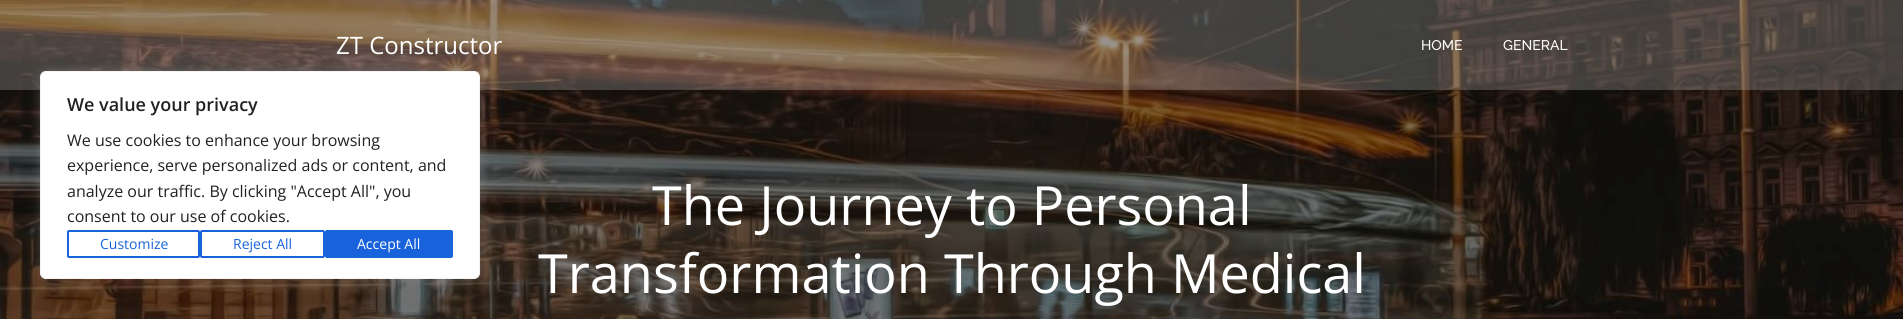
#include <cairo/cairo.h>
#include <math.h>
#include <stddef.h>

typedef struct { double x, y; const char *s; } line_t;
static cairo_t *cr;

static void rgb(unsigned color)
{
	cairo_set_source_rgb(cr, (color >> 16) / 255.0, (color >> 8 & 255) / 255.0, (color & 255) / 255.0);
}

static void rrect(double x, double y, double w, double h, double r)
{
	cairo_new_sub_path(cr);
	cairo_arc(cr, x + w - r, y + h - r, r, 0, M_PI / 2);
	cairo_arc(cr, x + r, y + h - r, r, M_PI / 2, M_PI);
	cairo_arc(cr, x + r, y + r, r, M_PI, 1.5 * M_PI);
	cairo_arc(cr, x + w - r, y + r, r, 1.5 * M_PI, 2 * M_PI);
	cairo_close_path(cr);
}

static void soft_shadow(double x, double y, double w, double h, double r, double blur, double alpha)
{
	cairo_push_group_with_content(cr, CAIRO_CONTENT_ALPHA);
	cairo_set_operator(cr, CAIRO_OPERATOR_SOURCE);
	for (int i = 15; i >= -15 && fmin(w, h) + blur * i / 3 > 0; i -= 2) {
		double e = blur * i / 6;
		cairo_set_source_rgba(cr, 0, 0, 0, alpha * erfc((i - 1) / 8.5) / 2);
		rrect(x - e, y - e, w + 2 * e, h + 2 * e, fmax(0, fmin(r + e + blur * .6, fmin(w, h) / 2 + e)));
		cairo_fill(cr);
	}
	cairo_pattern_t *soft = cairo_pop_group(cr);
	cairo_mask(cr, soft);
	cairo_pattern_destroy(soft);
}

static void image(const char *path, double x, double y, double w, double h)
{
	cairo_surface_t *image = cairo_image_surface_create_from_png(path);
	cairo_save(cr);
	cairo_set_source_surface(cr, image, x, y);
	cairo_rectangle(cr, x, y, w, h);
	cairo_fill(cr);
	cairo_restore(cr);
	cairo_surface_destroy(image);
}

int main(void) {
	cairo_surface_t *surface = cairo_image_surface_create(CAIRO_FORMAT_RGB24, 1903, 319);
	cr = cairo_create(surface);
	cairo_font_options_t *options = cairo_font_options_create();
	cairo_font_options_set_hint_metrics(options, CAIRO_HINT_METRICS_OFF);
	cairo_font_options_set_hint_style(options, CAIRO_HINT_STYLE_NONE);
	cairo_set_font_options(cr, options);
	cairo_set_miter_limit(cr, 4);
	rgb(0xffffff);
	cairo_paint(cr);
	image("img/1.png", 0, 0, 1903, 319);
	cairo_set_source_rgba(cr, 1, 1, 1, 0.2);
	cairo_rectangle(cr, 0, 0, 1903, 90);
	cairo_fill(cr);
	rgb(0xacabab);
	soft_shadow(40, 70, 440, 208, 6, 5, 0.3);
	rgb(0xffffff);
	rrect(40.5, 71.5, 439, 207, 5.5);
	cairo_fill_preserve(cr);
	rgb(0xf4f4f4);
	cairo_set_line_width(cr, 1);
	cairo_stroke(cr);
	rrect(68, 231, 131, 26, 1);
	rgb(0x1863dc);
	cairo_set_line_width(cr, 2);
	cairo_stroke(cr);
	rrect(201, 231, 123, 26, 1);
	cairo_stroke(cr);
	rrect(326, 231, 126, 26, 1);
	cairo_fill_preserve(cr);
	cairo_stroke(cr);
	cairo_select_font_face(cr, "Open Sans SemiBold", CAIRO_FONT_SLANT_NORMAL, CAIRO_FONT_WEIGHT_NORMAL);
	cairo_set_font_size(cr, 18);
	rgb(0x212121);
	cairo_move_to(cr, 67, 111);
	cairo_show_text(cr, "We value your privacy");
	cairo_select_font_face(cr, "Open Sans", CAIRO_FONT_SLANT_NORMAL, CAIRO_FONT_WEIGHT_NORMAL);
	cairo_set_font_size(cr, 16);
	{
		static const line_t items[] = {
			{67, 146, "We use cookies to enhance your browsing"},
			{67, 171, "experience, serve personalized ads or content, and"},
			{67, 197, "analyze our traffic. By clicking \"Accept All\", you"},
			{67, 222, "consent to our use of cookies."},
		};
		for (size_t i = 0; i < sizeof items / sizeof *items; i++) {
			cairo_move_to(cr, items[i].x, items[i].y);
			cairo_show_text(cr, items[i].s);
		}
	}
	cairo_set_font_size(cr, 14);
	rgb(0x1863dc);
	cairo_move_to(cr, 100, 249);
	cairo_show_text(cr, "Customize");
	cairo_move_to(cr, 233, 249);
	cairo_show_text(cr, "Reject All");
	rgb(0xffffff);
	cairo_move_to(cr, 357, 249);
	cairo_show_text(cr, "Accept All");
	cairo_set_font_size(cr, 24);
	cairo_move_to(cr, 336, 54);
	cairo_show_text(cr, "ZT Constructor");
	cairo_select_font_face(cr, "Raleway Medium", CAIRO_FONT_SLANT_NORMAL, CAIRO_FONT_WEIGHT_NORMAL);
	cairo_set_font_size(cr, 14);
	cairo_move_to(cr, 1421, 50);
	cairo_show_text(cr, "HOME");
	cairo_move_to(cr, 1503, 50);
	cairo_show_text(cr, "GENERAL");
	cairo_select_font_face(cr, "Open Sans", CAIRO_FONT_SLANT_NORMAL, CAIRO_FONT_WEIGHT_NORMAL);
	cairo_set_font_size(cr, 54);
	cairo_move_to(cr, 652, 225);
	cairo_show_text(cr, "The Journey to Personal");
	cairo_move_to(cr, 538, 293);
	cairo_show_text(cr, "Transformation Through Medical");
	cairo_surface_write_to_png(surface, "page.png");
	cairo_font_options_destroy(options);
	cairo_destroy(cr);
	cairo_surface_destroy(surface);
	return 0;
}
